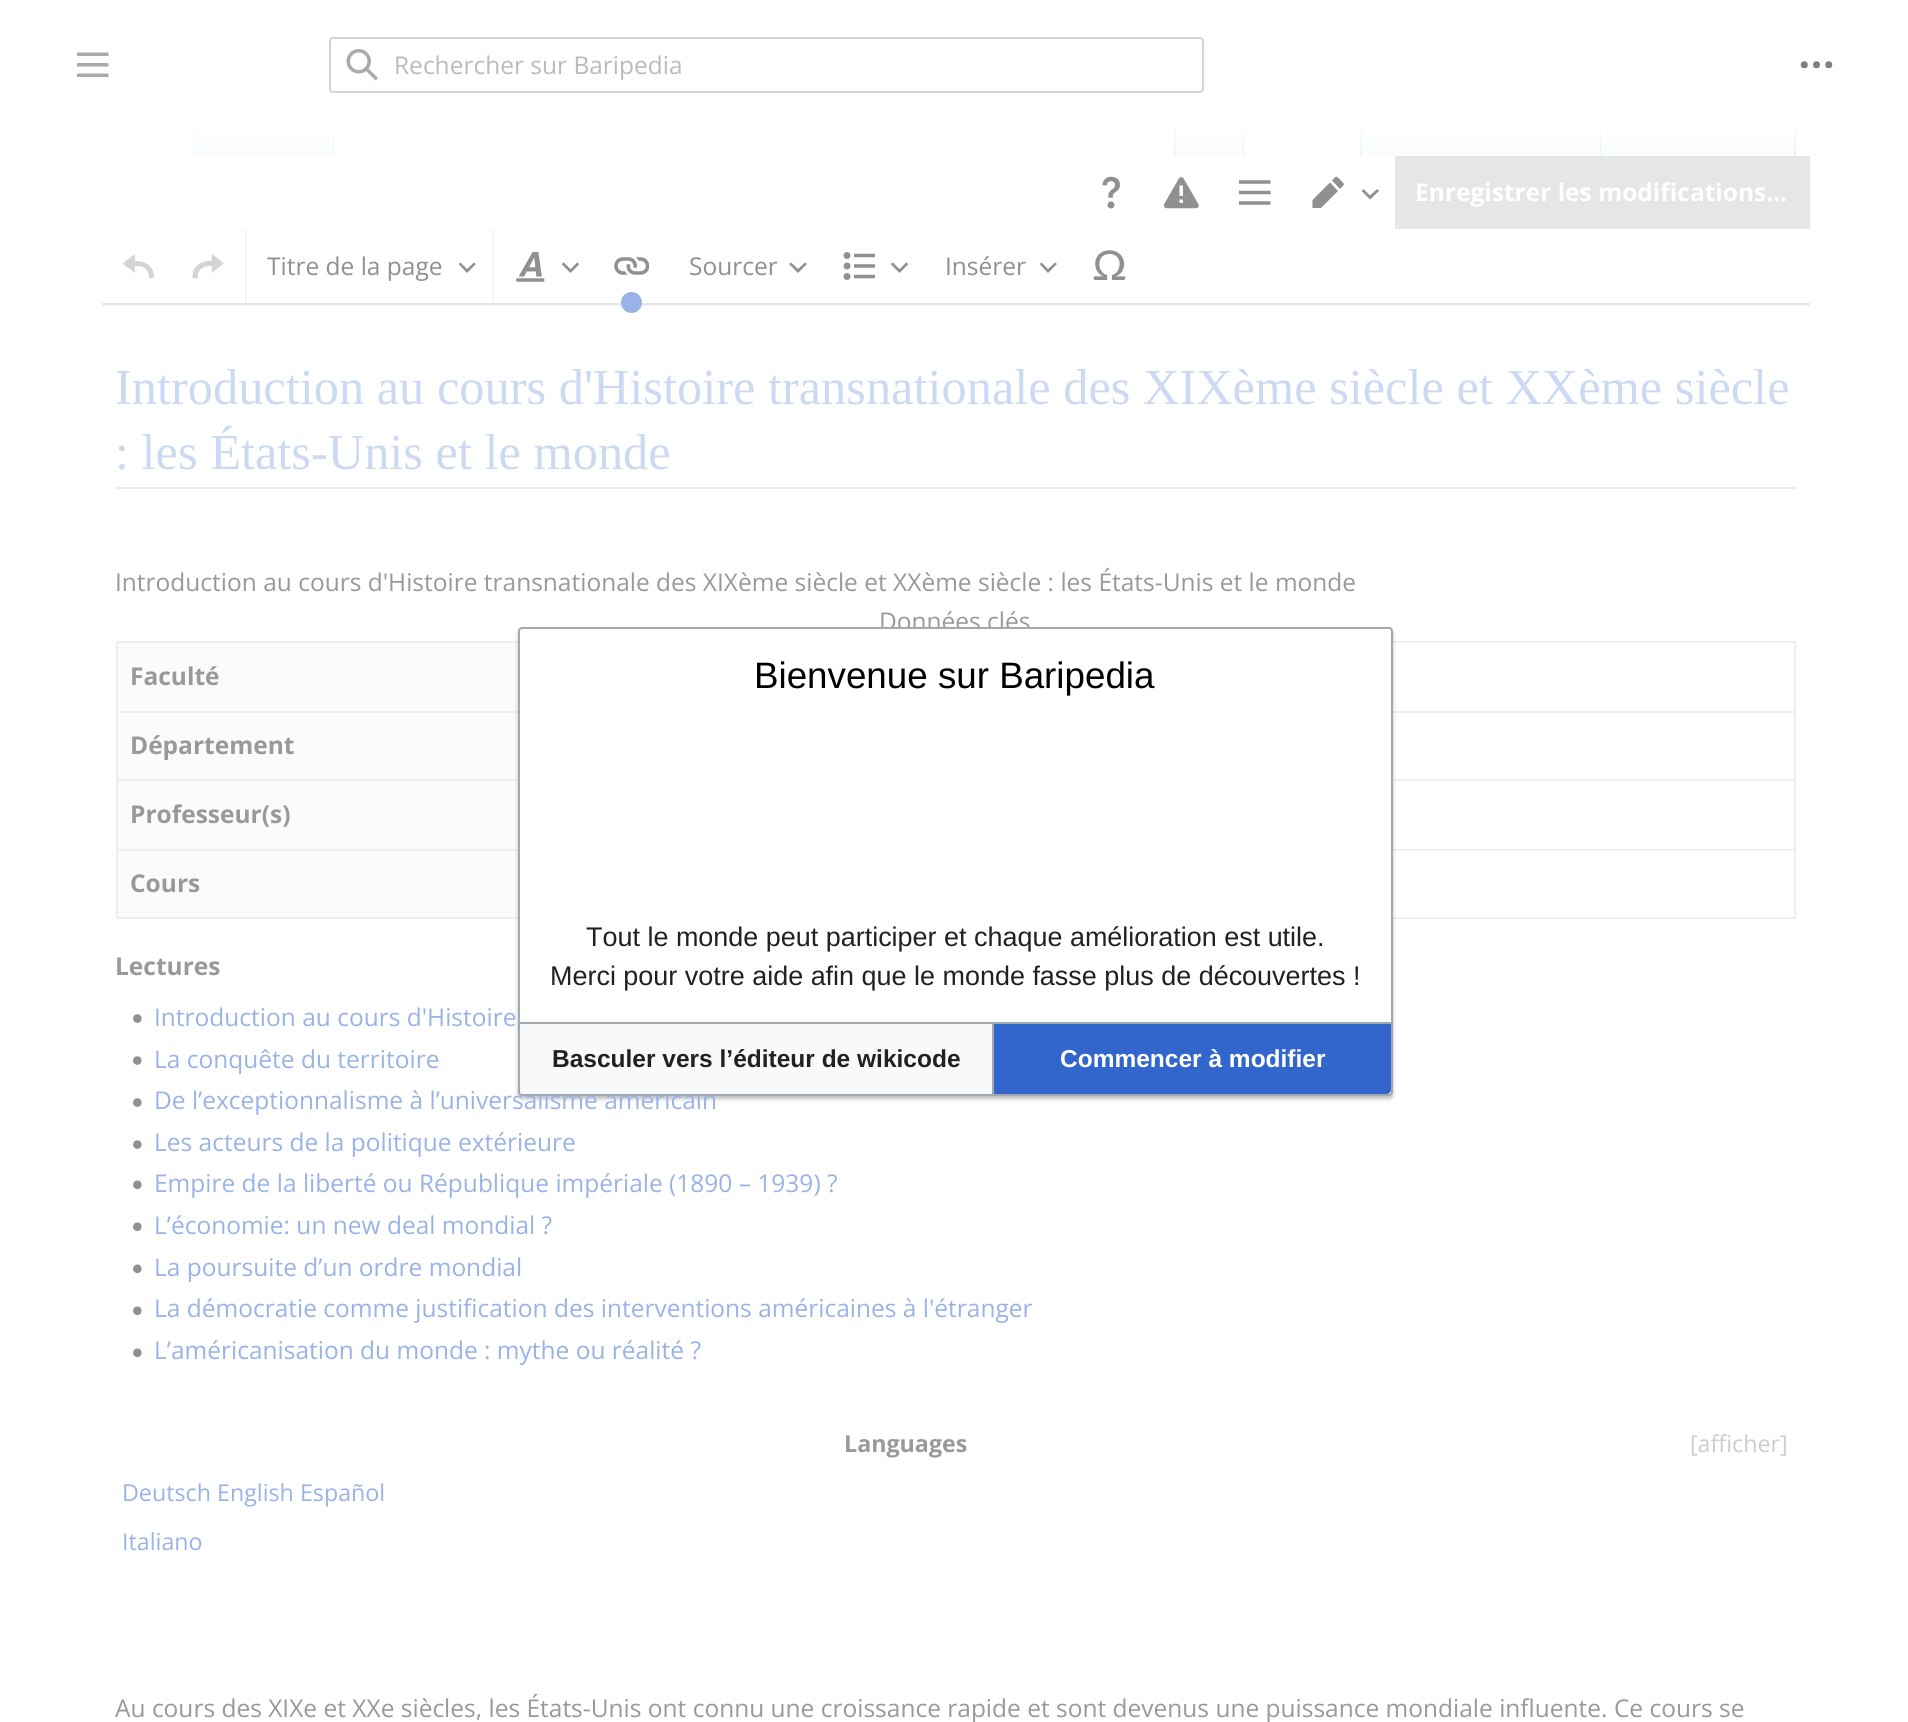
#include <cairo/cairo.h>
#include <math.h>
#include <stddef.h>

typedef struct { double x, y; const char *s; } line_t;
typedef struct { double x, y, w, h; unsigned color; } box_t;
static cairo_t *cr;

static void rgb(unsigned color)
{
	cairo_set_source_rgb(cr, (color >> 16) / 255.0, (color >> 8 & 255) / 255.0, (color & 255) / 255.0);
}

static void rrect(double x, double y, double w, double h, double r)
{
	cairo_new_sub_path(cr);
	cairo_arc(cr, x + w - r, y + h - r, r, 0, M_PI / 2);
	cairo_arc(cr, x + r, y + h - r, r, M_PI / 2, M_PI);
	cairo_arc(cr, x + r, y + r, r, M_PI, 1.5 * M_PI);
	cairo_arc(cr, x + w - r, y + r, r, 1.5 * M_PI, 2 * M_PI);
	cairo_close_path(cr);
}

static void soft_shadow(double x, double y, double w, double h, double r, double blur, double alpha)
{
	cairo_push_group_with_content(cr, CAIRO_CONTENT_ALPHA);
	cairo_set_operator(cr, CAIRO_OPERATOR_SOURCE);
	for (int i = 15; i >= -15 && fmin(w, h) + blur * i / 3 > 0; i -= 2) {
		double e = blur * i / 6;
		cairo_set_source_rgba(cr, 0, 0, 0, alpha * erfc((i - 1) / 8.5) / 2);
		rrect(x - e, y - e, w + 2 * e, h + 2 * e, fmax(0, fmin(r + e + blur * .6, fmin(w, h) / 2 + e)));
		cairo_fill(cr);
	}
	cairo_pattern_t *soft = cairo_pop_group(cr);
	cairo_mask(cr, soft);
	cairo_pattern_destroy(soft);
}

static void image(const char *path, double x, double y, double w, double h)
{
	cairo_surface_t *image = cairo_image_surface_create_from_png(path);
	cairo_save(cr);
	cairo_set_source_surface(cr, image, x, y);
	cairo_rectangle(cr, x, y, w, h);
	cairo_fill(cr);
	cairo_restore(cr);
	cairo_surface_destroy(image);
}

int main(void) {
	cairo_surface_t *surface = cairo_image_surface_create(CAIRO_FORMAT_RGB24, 1908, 1722);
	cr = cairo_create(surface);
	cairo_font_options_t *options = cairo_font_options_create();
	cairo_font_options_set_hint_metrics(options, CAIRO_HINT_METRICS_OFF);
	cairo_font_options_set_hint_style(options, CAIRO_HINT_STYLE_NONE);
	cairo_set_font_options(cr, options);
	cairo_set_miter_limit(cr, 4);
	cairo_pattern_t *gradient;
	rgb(0xffffff);
	cairo_paint(cr);
	image("img/1.png", 77, 52, 32, 25);
	rrect(330, 38, 873, 54, 3);
	rgb(0xd1d4d8);
	cairo_stroke(cr);
	image("img/2.png", 346, 49, 32, 32);
	image("img/3.png", 1800, 61, 33, 8);
	gradient = cairo_pattern_create_linear(193, 121, 193, 191);
	cairo_pattern_add_color_stop_rgba(gradient, 0, 0.827, 0.922, 0.988, 0);
	cairo_pattern_add_color_stop_rgba(gradient, 1, 0.827, 0.922, 0.988, 1);
	cairo_set_source(cr, gradient);
	cairo_pattern_destroy(gradient);
	cairo_rectangle(cr, 193, 121, 1, 35);
	cairo_fill(cr);
	gradient = cairo_pattern_create_linear(264, 191, 264, 121);
	cairo_pattern_add_color_stop_rgba(gradient, 0, 0.733, 0.878, 0.984, 1);
	cairo_pattern_add_color_stop_rgba(gradient, 0.03, 0.957, 0.976, 0.988, 1);
	cairo_pattern_add_color_stop_rgba(gradient, 1, 1, 1, 1, 1);
	cairo_set_source(cr, gradient);
	cairo_pattern_destroy(gradient);
	cairo_rectangle(cr, 194, 136, 140, 20);
	cairo_fill(cr);
	gradient = cairo_pattern_create_linear(333, 121, 333, 191);
	cairo_pattern_add_color_stop_rgba(gradient, 0, 0.827, 0.922, 0.988, 0);
	cairo_pattern_add_color_stop_rgba(gradient, 1, 0.827, 0.922, 0.988, 1);
	cairo_set_source(cr, gradient);
	cairo_pattern_destroy(gradient);
	cairo_rectangle(cr, 333, 121, 1, 35);
	cairo_fill(cr);
	gradient = cairo_pattern_create_linear(1175, 121, 1175, 191);
	cairo_pattern_add_color_stop_rgba(gradient, 0, 1, 1, 1, 1);
	cairo_pattern_add_color_stop_rgba(gradient, 1, 0.827, 0.922, 0.988, 1);
	cairo_set_source(cr, gradient);
	cairo_pattern_destroy(gradient);
	cairo_rectangle(cr, 1174, 121, 2, 35);
	cairo_fill(cr);
	gradient = cairo_pattern_create_linear(1210, 191, 1210, 121);
	cairo_pattern_add_color_stop_rgba(gradient, 0, 0.733, 0.878, 0.984, 1);
	cairo_pattern_add_color_stop_rgba(gradient, 0.03, 0.957, 0.976, 0.988, 1);
	cairo_pattern_add_color_stop_rgba(gradient, 1, 1, 1, 1, 1);
	cairo_set_source(cr, gradient);
	cairo_pattern_destroy(gradient);
	cairo_rectangle(cr, 1176, 136, 68, 20);
	cairo_fill(cr);
	gradient = cairo_pattern_create_linear(1243, 121, 1243, 191);
	cairo_pattern_add_color_stop_rgba(gradient, 0, 0.827, 0.922, 0.988, 0);
	cairo_pattern_add_color_stop_rgba(gradient, 1, 0.827, 0.922, 0.988, 1);
	cairo_set_source(cr, gradient);
	cairo_pattern_destroy(gradient);
	cairo_rectangle(cr, 1243, 121, 1, 35);
	cairo_fill(cr);
	gradient = cairo_pattern_create_linear(1361, 121, 1361, 191);
	cairo_pattern_add_color_stop_rgba(gradient, 0, 0.827, 0.922, 0.988, 0);
	cairo_pattern_add_color_stop_rgba(gradient, 1, 0.827, 0.922, 0.988, 1);
	cairo_set_source(cr, gradient);
	cairo_pattern_destroy(gradient);
	cairo_rectangle(cr, 1360, 121, 2, 35);
	cairo_fill(cr);
	gradient = cairo_pattern_create_linear(1481, 191, 1481, 121);
	cairo_pattern_add_color_stop_rgba(gradient, 0, 0.733, 0.878, 0.984, 1);
	cairo_pattern_add_color_stop_rgba(gradient, 0.03, 0.957, 0.976, 0.988, 1);
	cairo_pattern_add_color_stop_rgba(gradient, 1, 1, 1, 1, 1);
	cairo_set_source(cr, gradient);
	cairo_pattern_destroy(gradient);
	cairo_rectangle(cr, 1362, 136, 239, 20);
	cairo_fill(cr);
	gradient = cairo_pattern_create_linear(1600, 121, 1600, 191);
	cairo_pattern_add_color_stop_rgba(gradient, 0, 0.827, 0.922, 0.988, 0);
	cairo_pattern_add_color_stop_rgba(gradient, 1, 0.827, 0.922, 0.988, 1);
	cairo_set_source(cr, gradient);
	cairo_pattern_destroy(gradient);
	cairo_rectangle(cr, 1600, 121, 1, 35);
	cairo_fill(cr);
	gradient = cairo_pattern_create_linear(1698, 191, 1698, 121);
	cairo_pattern_add_color_stop_rgba(gradient, 0, 0.733, 0.878, 0.984, 1);
	cairo_pattern_add_color_stop_rgba(gradient, 0.03, 0.957, 0.976, 0.988, 1);
	cairo_pattern_add_color_stop_rgba(gradient, 1, 1, 1, 1, 1);
	cairo_set_source(cr, gradient);
	cairo_pattern_destroy(gradient);
	cairo_rectangle(cr, 1601, 136, 195, 20);
	cairo_fill(cr);
	gradient = cairo_pattern_create_linear(1795, 121, 1795, 191);
	cairo_pattern_add_color_stop_rgba(gradient, 0, 0.827, 0.922, 0.988, 0);
	cairo_pattern_add_color_stop_rgba(gradient, 1, 0.827, 0.922, 0.988, 1);
	cairo_set_source(cr, gradient);
	cairo_pattern_destroy(gradient);
	cairo_rectangle(cr, 1794, 121, 2, 35);
	cairo_fill(cr);
	rgb(0x808080);
	soft_shadow(102, 158, 1708, 148, 0, 1, 0.1);
	rgb(0xffffff);
	cairo_rectangle(cr, 102, 157, 1708, 146);
	cairo_fill(cr);
	rgb(0xe4e6e8);
	cairo_rectangle(cr, 102, 303, 1708, 2);
	cairo_fill(cr);
	image("img/4.png", 1102, 176, 18, 33);
	image("img/5.png", 1164, 177, 35, 32);
	image("img/6.png", 1239, 180, 32, 25);
	rgb(0x909090);
	cairo_new_path(cr);
	cairo_move_to(cr, 1340, 189);
	cairo_curve_to(cr, 1344.5, 184, 1345.5, 185, 1340.5, 180);
	cairo_curve_to(cr, 1335.5, 175, 1336.5, 176, 1332, 180.5);
	cairo_close_path(cr);
	cairo_move_to(cr, 1312.5, 200);
	cairo_line_to(cr, 1312.5, 208);
	cairo_line_to(cr, 1321, 208);
	cairo_line_to(cr, 1338, 191);
	cairo_line_to(cr, 1330, 182.5);
	cairo_close_path(cr);
	cairo_fill(cr);
	cairo_new_path(cr);
	cairo_move_to(cr, 1377, 189);
	cairo_line_to(cr, 1370, 195.5);
	cairo_line_to(cr, 1363.5, 189);
	cairo_line_to(cr, 1361.5, 191);
	cairo_line_to(cr, 1370, 199.5);
	cairo_line_to(cr, 1379, 191);
	cairo_close_path(cr);
	cairo_fill(cr);
	rgb(0xe4e6e8);
	cairo_rectangle(cr, 1395, 156, 415, 73);
	cairo_fill(cr);
	rgb(0xd4d4d4);
	cairo_new_path(cr);
	cairo_move_to(cr, 122.5, 263.5);
	cairo_line_to(cr, 135, 273);
	cairo_line_to(cr, 135, 266);
	cairo_curve_to(cr, 143.5, 266, 149, 268.5, 149, 278);
	cairo_line_to(cr, 154, 278);
	cairo_curve_to(cr, 154, 266, 146.5, 261, 135, 261);
	cairo_line_to(cr, 135, 254);
	cairo_close_path(cr);
	cairo_fill(cr);
	image("img/7.png", 192, 254, 32, 25);
	rgb(0xf5f6f8);
	cairo_rectangle(cr, 492, 229, 2, 74);
	cairo_fill(cr);
	cairo_rectangle(cr, 245, 229, 2, 74);
	cairo_fill(cr);
	rgb(0x909090);
	cairo_new_path(cr);
	cairo_move_to(cr, 474, 262.5);
	cairo_line_to(cr, 467, 269);
	cairo_line_to(cr, 460.5, 262.5);
	cairo_line_to(cr, 458.5, 264);
	cairo_line_to(cr, 467, 273);
	cairo_line_to(cr, 476, 264);
	cairo_close_path(cr);
	cairo_fill(cr);
	image("img/8.png", 516, 252, 29, 30);
	image("img/9.png", 561, 262, 19, 11);
	image("img/10.png", 614, 257, 35, 18);
	rgb(0x99b3e6);
	cairo_arc(cr, 631.5, 302.5, 10.5, 0, 2 * M_PI);
	cairo_fill(cr);
	rgb(0x909090);
	cairo_new_path(cr);
	cairo_move_to(cr, 805, 262.5);
	cairo_line_to(cr, 798, 269);
	cairo_line_to(cr, 791, 262.5);
	cairo_line_to(cr, 789, 264);
	cairo_line_to(cr, 798, 273);
	cairo_line_to(cr, 807, 264);
	cairo_close_path(cr);
	cairo_fill(cr);
	image("img/11.png", 843, 252, 32, 28);
	image("img/9.png", 890, 262, 19, 11);
	cairo_new_path(cr);
	cairo_move_to(cr, 1055, 262.5);
	cairo_line_to(cr, 1048, 269);
	cairo_line_to(cr, 1041.5, 262.5);
	cairo_line_to(cr, 1039.5, 264);
	cairo_line_to(cr, 1048, 273);
	cairo_line_to(cr, 1057, 264);
	cairo_close_path(cr);
	cairo_fill(cr);
	image("img/12.png", 1093, 250, 33, 30);
	{
		static const box_t items[] = {
			{116, 487, 1680, 2, 0xe8eaec},
			{118, 643, 400, 68, 0xfbfbfb},
			{116, 641, 402, 2, 0xeeeeee},
			{116, 711, 402, 2, 0xeeeeee},
			{116, 779, 402, 2, 0xeeeeee},
			{116, 849, 402, 2, 0xeeeeee},
			{116, 917, 402, 2, 0xeeeeee},
			{116, 849, 2, 70, 0xeeeeee},
			{116, 779, 2, 72, 0xeeeeee},
			{116, 711, 2, 70, 0xeeeeee},
			{116, 641, 2, 71, 0xeeeeee},
			{1393, 641, 403, 2, 0xeeeeee},
			{1393, 711, 403, 2, 0xeeeeee},
			{1393, 779, 403, 2, 0xeeeeee},
			{1393, 849, 403, 2, 0xeeeeee},
			{1794, 849, 2, 70, 0xeeeeee},
			{1794, 779, 2, 72, 0xeeeeee},
			{1794, 711, 2, 70, 0xeeeeee},
			{1794, 641, 2, 71, 0xeeeeee},
			{118, 713, 400, 66, 0xfbfbfb},
			{118, 781, 400, 68, 0xfbfbfb},
			{118, 851, 400, 66, 0xfbfbfb},
			{1393, 917, 403, 2, 0xeeeeee},
		};
		for (size_t i = 0; i < sizeof items / sizeof *items; i++) {
			rgb(items[i].color);
			cairo_rectangle(cr, items[i].x, items[i].y, items[i].w, items[i].h);
			cairo_fill(cr);
		}
	}
	image("img/13.png", 133, 1014, 9, 9);
	image("img/14.png", 133, 1056, 9, 9);
	image("img/14.png", 133, 1098, 9, 9);
	image("img/14.png", 133, 1140, 9, 9);
	image("img/15.png", 133, 1180, 9, 10);
	image("img/15.png", 133, 1222, 9, 10);
	image("img/16.png", 133, 1264, 9, 10);
	image("img/15.png", 133, 1306, 9, 10);
	image("img/15.png", 133, 1348, 9, 10);
	rgb(0x000000);
	soft_shadow(518, 630, 875, 469, 4, 2, 0.25);
	cairo_select_font_face(cr, "Open Sans", CAIRO_FONT_SLANT_NORMAL, CAIRO_FONT_WEIGHT_NORMAL);
	cairo_set_font_size(cr, 24.5);
	rgb(0xb9bbbe);
	cairo_move_to(cr, 394, 74);
	cairo_show_text(cr, "Rechercher sur Baripedia");
	cairo_select_font_face(cr, "Open Sans", CAIRO_FONT_SLANT_NORMAL, CAIRO_FONT_WEIGHT_BOLD);
	rgb(0xffffff);
	cairo_move_to(cr, 1415, 201);
	cairo_show_text(cr, "Enregistrer les modifications…");
	cairo_select_font_face(cr, "Open Sans", CAIRO_FONT_SLANT_NORMAL, CAIRO_FONT_WEIGHT_NORMAL);
	rgb(0x909091);
	{
		static const line_t items[] = {
			{267, 275, "Titre de la page"},
			{689, 275, "Sourcer"},
			{945, 275, "Insérer"},
		};
		for (size_t i = 0; i < sizeof items / sizeof *items; i++) {
			cairo_move_to(cr, items[i].x, items[i].y);
			cairo_show_text(cr, items[i].s);
		}
	}
	cairo_select_font_face(cr, "Liberation Serif", CAIRO_FONT_SLANT_NORMAL, CAIRO_FONT_WEIGHT_NORMAL);
	cairo_set_font_size(cr, 50.4);
	rgb(0xccd9f3);
	cairo_move_to(cr, 115, 404);
	cairo_show_text(cr, "Introduction au cours d'Histoire transnationale des XIXème siècle et XXème siècle");
	cairo_move_to(cr, 115, 469);
	cairo_show_text(cr, ": les États-Unis et le monde");
	cairo_select_font_face(cr, "Open Sans", CAIRO_FONT_SLANT_NORMAL, CAIRO_FONT_WEIGHT_NORMAL);
	cairo_set_font_size(cr, 24.5);
	rgb(0x999999);
	cairo_move_to(cr, 115, 591);
	cairo_show_text(cr, "Introduction au cours d'Histoire transnationale des XIXème siècle et XXème siècle : les États-Unis et le monde");
	cairo_move_to(cr, 879, 630);
	cairo_show_text(cr, "Données clés");
	cairo_select_font_face(cr, "Open Sans", CAIRO_FONT_SLANT_NORMAL, CAIRO_FONT_WEIGHT_BOLD);
	{
		static const line_t items[] = {
			{130, 685, "Faculté"},
			{130, 754, "Département"},
			{130, 823, "Professeur(s)"},
			{130, 892, "Cours"},
			{115, 975, "Lectures"},
		};
		for (size_t i = 0; i < sizeof items / sizeof *items; i++) {
			cairo_move_to(cr, items[i].x, items[i].y);
			cairo_show_text(cr, items[i].s);
		}
	}
	cairo_select_font_face(cr, "Open Sans", CAIRO_FONT_SLANT_NORMAL, CAIRO_FONT_WEIGHT_NORMAL);
	rgb(0x99b3e6);
	{
		static const line_t items[] = {
			{154, 1026, "Introduction au cours d'Histoire"},
			{154, 1068, "La conquête du territoire"},
			{154, 1109, "De l’exceptionnalisme à l’universalisme américain"},
			{154, 1151, "Les acteurs de la politique extérieure"},
			{154, 1192, "Empire de la liberté ou République impériale (1890 – 1939) ?"},
			{154, 1234, "L’économie: un new deal mondial ?"},
			{154, 1276, "La poursuite d’un ordre mondial"},
			{154, 1317, "La démocratie comme justification des interventions américaines à l'étranger"},
			{154, 1359, "L’américanisation du monde : mythe ou réalité ?"},
		};
		for (size_t i = 0; i < sizeof items / sizeof *items; i++) {
			cairo_move_to(cr, items[i].x, items[i].y);
			cairo_show_text(cr, items[i].s);
		}
	}
	cairo_select_font_face(cr, "Open Sans", CAIRO_FONT_SLANT_NORMAL, CAIRO_FONT_WEIGHT_BOLD);
	cairo_set_font_size(cr, 23.25);
	rgb(0x999999);
	cairo_move_to(cr, 844, 1452);
	cairo_show_text(cr, "Languages");
	cairo_select_font_face(cr, "Open Sans", CAIRO_FONT_SLANT_NORMAL, CAIRO_FONT_WEIGHT_NORMAL);
	rgb(0xcccccc);
	cairo_move_to(cr, 1690, 1452);
	cairo_show_text(cr, "[afficher]");
	rgb(0x99b3e6);
	cairo_move_to(cr, 122, 1501);
	cairo_show_text(cr, "Deutsch English Español");
	cairo_move_to(cr, 122, 1550);
	cairo_show_text(cr, "Italiano");
	cairo_set_font_size(cr, 24.5);
	rgb(0x999999);
	cairo_move_to(cr, 115, 1717);
	cairo_show_text(cr, "Au cours des XIXe et XXe siècles, les États-Unis ont connu une croissance rapide et sont devenus une puissance mondiale influente. Ce cours se");
	rgb(0xffffff);
	rrect(519, 628, 873, 467, 3);
	cairo_fill_preserve(cr);
	rgb(0xa2a9b1);
	cairo_stroke(cr);
	cairo_select_font_face(cr, "Liberation Sans", CAIRO_FONT_SLANT_NORMAL, CAIRO_FONT_WEIGHT_NORMAL);
	cairo_set_font_size(cr, 36.75);
	rgb(0x000000);
	cairo_move_to(cr, 754, 688);
	cairo_show_text(cr, "Bienvenue sur Baripedia");
	cairo_set_font_size(cr, 26.95);
	rgb(0x202122);
	cairo_move_to(cr, 586, 946);
	cairo_show_text(cr, "Tout le monde peut participer et chaque amélioration est utile.");
	cairo_move_to(cr, 550, 985);
	cairo_show_text(cr, "Merci pour votre aide afin que le monde fasse plus de découvertes !");
	cairo_save(cr);
	cairo_rectangle(cr, 520, 628, 871, 466);
	cairo_clip(cr);
	cairo_rectangle(cr, 519, 1023, 873, 72);
	rgb(0xa2a9b1);
	cairo_stroke(cr);
	cairo_restore(cr);
	rgb(0xa2a9b1);
	cairo_rectangle(cr, 992, 1024, 2, 70);
	cairo_fill(cr);
	rgb(0xf8f9fa);
	cairo_new_path(cr);
	cairo_move_to(cr, 520, 1024);
	cairo_line_to(cr, 992, 1024);
	cairo_line_to(cr, 992, 1094);
	cairo_line_to(cr, 524, 1094);
	cairo_curve_to(cr, 522, 1094, 520, 1092, 520, 1090);
	cairo_close_path(cr);
	cairo_fill(cr);
	cairo_select_font_face(cr, "Liberation Sans", CAIRO_FONT_SLANT_NORMAL, CAIRO_FONT_WEIGHT_BOLD);
	cairo_set_font_size(cr, 24.5);
	rgb(0x202122);
	cairo_move_to(cr, 552, 1067);
	cairo_show_text(cr, "Basculer vers l’éditeur de wikicode");
	rgb(0x3366cc);
	cairo_new_path(cr);
	cairo_move_to(cr, 994, 1024);
	cairo_line_to(cr, 1391, 1024);
	cairo_line_to(cr, 1391, 1090);
	cairo_curve_to(cr, 1391, 1092, 1389, 1094, 1387, 1094);
	cairo_line_to(cr, 994, 1094);
	cairo_close_path(cr);
	cairo_fill(cr);
	rgb(0xffffff);
	cairo_move_to(cr, 1060, 1067);
	cairo_show_text(cr, "Commencer à modifier");
	cairo_surface_write_to_png(surface, "page.png");
	cairo_font_options_destroy(options);
	cairo_destroy(cr);
	cairo_surface_destroy(surface);
	return 0;
}
